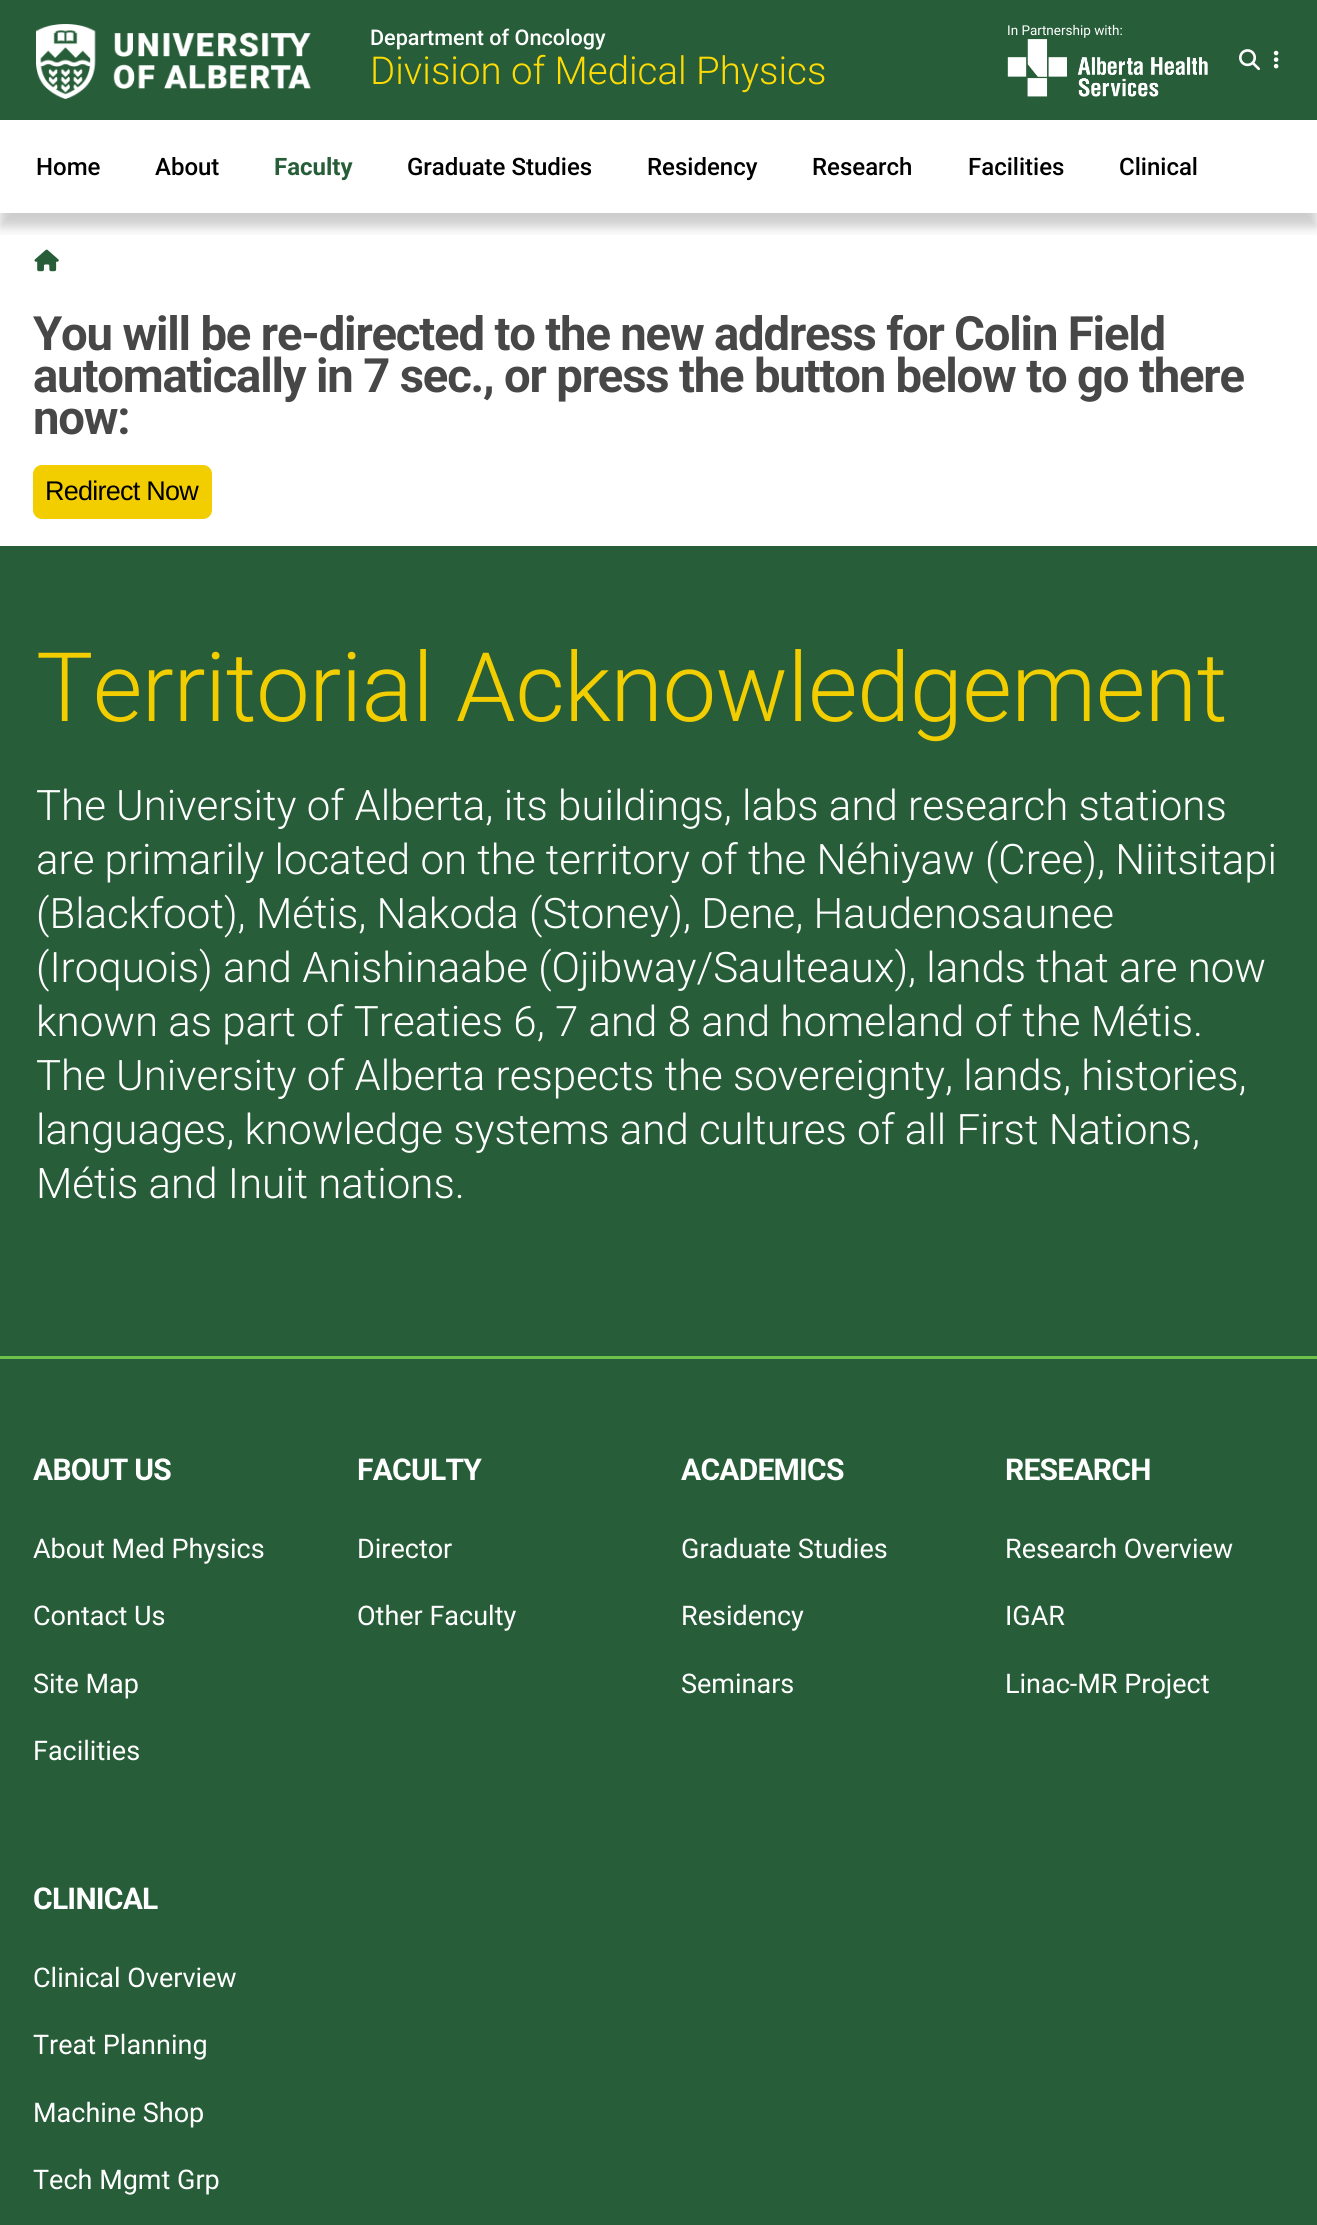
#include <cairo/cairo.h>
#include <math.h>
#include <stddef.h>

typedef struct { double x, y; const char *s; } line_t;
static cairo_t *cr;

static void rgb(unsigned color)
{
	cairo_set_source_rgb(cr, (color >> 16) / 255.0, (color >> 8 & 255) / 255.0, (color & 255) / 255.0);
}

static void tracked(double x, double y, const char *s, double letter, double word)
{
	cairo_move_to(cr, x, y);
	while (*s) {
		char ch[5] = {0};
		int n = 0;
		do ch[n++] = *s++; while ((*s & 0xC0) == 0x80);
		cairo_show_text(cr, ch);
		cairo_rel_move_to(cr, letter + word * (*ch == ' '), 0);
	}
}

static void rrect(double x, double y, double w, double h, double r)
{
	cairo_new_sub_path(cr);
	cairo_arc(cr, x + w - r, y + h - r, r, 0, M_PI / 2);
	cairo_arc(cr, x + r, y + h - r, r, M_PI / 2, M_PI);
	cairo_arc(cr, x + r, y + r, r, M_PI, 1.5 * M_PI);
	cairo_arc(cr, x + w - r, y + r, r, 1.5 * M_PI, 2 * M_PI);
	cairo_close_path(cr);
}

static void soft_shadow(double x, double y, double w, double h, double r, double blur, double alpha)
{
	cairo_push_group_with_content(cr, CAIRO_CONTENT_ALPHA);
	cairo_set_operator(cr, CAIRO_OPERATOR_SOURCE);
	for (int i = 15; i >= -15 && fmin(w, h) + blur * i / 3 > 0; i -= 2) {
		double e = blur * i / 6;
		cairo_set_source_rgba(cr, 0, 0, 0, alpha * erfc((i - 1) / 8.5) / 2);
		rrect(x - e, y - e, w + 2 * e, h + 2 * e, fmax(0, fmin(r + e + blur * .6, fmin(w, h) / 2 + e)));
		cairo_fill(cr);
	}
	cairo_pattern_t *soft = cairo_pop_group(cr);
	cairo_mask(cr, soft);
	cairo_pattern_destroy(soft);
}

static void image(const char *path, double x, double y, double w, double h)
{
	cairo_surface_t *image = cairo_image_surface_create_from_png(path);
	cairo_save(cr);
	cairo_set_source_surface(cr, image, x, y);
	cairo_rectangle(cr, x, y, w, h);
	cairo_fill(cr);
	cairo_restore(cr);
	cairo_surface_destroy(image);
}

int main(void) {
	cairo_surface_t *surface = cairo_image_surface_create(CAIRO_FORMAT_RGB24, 1317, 2225);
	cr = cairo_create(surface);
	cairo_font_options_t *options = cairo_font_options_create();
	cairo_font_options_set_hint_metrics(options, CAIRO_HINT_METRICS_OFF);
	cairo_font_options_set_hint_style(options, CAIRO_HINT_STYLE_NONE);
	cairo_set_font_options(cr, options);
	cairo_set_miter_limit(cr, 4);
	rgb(0xffffff);
	cairo_paint(cr);
	rgb(0x275d38);
	cairo_rectangle(cr, 0, 0, 1317, 120);
	cairo_fill(cr);
	image("img/1.png", 36, 24, 275, 75);
	image("img/2.png", 1239, 49, 40, 22);
	image("img/3.png", 1007, 39, 201, 58);
	cairo_save(cr);
	cairo_rectangle(cr, 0, 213, 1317, 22);
	cairo_clip(cr);
	rgb(0x000000);
	soft_shadow(0, 134, 1317, 93, 0, 6, 0.2);
	cairo_restore(cr);
	image("img/4.png", 34, 249, 25, 23);
	rgb(0xf2cd00);
	rrect(33, 465, 179, 54, 9);
	cairo_fill(cr);
	rgb(0x275d38);
	cairo_rectangle(cr, 0, 546, 1317, 1679);
	cairo_fill(cr);
	rgb(0x6cc24a);
	cairo_rectangle(cr, 0, 1356, 1317, 3);
	cairo_fill(cr);
	cairo_select_font_face(cr, "Roboto Medium", CAIRO_FONT_SLANT_NORMAL, CAIRO_FONT_WEIGHT_NORMAL);
	cairo_set_font_size(cr, 21.6);
	rgb(0xffffff);
	cairo_move_to(cr, 370, 45);
	cairo_show_text(cr, "Department of Oncology");
	cairo_select_font_face(cr, "Roboto Light", CAIRO_FONT_SLANT_NORMAL, CAIRO_FONT_WEIGHT_NORMAL);
	cairo_set_font_size(cr, 38.4);
	rgb(0xffdb05);
	cairo_move_to(cr, 370, 84);
	cairo_show_text(cr, "Division of Medical Physics");
	cairo_select_font_face(cr, "Roboto", CAIRO_FONT_SLANT_NORMAL, CAIRO_FONT_WEIGHT_NORMAL);
	cairo_set_font_size(cr, 13.5);
	rgb(0xffffff);
	cairo_move_to(cr, 1007, 35);
	cairo_show_text(cr, "In Partnership with:");
	cairo_select_font_face(cr, "Roboto Medium", CAIRO_FONT_SLANT_NORMAL, CAIRO_FONT_WEIGHT_NORMAL);
	cairo_set_font_size(cr, 24);
	rgb(0x000000);
	cairo_move_to(cr, 36, 175);
	cairo_show_text(cr, "Home");
	cairo_move_to(cr, 155, 175);
	cairo_show_text(cr, "About");
	cairo_select_font_face(cr, "Roboto", CAIRO_FONT_SLANT_NORMAL, CAIRO_FONT_WEIGHT_BOLD);
	rgb(0x275d38);
	cairo_move_to(cr, 274, 175);
	cairo_show_text(cr, "Faculty");
	cairo_select_font_face(cr, "Roboto Medium", CAIRO_FONT_SLANT_NORMAL, CAIRO_FONT_WEIGHT_NORMAL);
	rgb(0x000000);
	{
		static const line_t items[] = {
			{407, 175, "Graduate Studies"},
			{647, 175, "Residency"},
			{812, 175, "Research"},
			{968, 175, "Facilities"},
			{1119, 175, "Clinical"},
		};
		for (size_t i = 0; i < sizeof items / sizeof *items; i++) {
			cairo_move_to(cr, items[i].x, items[i].y);
			cairo_show_text(cr, items[i].s);
		}
	}
	cairo_save(cr);
	cairo_rectangle(cr, 33, 315, 1251, 204);
	cairo_clip(cr);
	cairo_select_font_face(cr, "Roboto", CAIRO_FONT_SLANT_NORMAL, CAIRO_FONT_WEIGHT_BOLD);
	cairo_set_font_size(cr, 47.25);
	rgb(0x474747);
	tracked(33, 350, "You will be re-directed to the new address for Colin Field", -1.18, 0);
	cairo_restore(cr);
	cairo_select_font_face(cr, "Roboto", CAIRO_FONT_SLANT_NORMAL, CAIRO_FONT_WEIGHT_BOLD);
	cairo_set_font_size(cr, 47.25);
	rgb(0x474747);
	tracked(33, 392, "automatically in 7 sec., or press the button below to go there", -1.18, 0);
	tracked(33, 434, "now:", -1.18, 0);
	cairo_select_font_face(cr, "Liberation Sans", CAIRO_FONT_SLANT_NORMAL, CAIRO_FONT_WEIGHT_NORMAL);
	cairo_set_font_size(cr, 27);
	rgb(0x000000);
	tracked(45, 500, "Redirect Now", -0.75, 0);
	cairo_select_font_face(cr, "Roboto Light", CAIRO_FONT_SLANT_NORMAL, CAIRO_FONT_WEIGHT_NORMAL);
	cairo_set_font_size(cr, 96);
	rgb(0xf2cd00);
	tracked(36, 721, "Territorial Acknowledgement", -0.7, 0);
	cairo_set_font_size(cr, 42);
	rgb(0xffffff);
	{
		static const line_t items[] = {
			{36, 820, "The University of Alberta, its buildings, labs and research stations"},
			{36, 874, "are primarily located on the territory of the Néhiyaw (Cree), Niitsitapi"},
			{36, 928, "(Blackfoot), Métis, Nakoda (Stoney), Dene, Haudenosaunee"},
			{36, 982, "(Iroquois) and Anishinaabe (Ojibway/Saulteaux), lands that are now"},
			{36, 1036, "known as part of Treaties 6, 7 and 8 and homeland of the Métis."},
			{36, 1090, "The University of Alberta respects the sovereignty, lands, histories,"},
			{36, 1144, "languages, knowledge systems and cultures of all First Nations,"},
			{36, 1198, "Métis and Inuit nations."},
		};
		for (size_t i = 0; i < sizeof items / sizeof *items; i++) {
			cairo_move_to(cr, items[i].x, items[i].y);
			cairo_show_text(cr, items[i].s);
		}
	}
	cairo_select_font_face(cr, "Roboto", CAIRO_FONT_SLANT_NORMAL, CAIRO_FONT_WEIGHT_BOLD);
	cairo_set_font_size(cr, 30);
	tracked(33, 1480, "ABOUT US", -0.75, 0);
	cairo_select_font_face(cr, "Roboto", CAIRO_FONT_SLANT_NORMAL, CAIRO_FONT_WEIGHT_NORMAL);
	cairo_set_font_size(cr, 27);
	{
		static const line_t items[] = {
			{33, 1558, "About Med Physics"},
			{33, 1625, "Contact Us"},
			{33, 1693, "Site Map"},
			{33, 1760, "Facilities"},
		};
		for (size_t i = 0; i < sizeof items / sizeof *items; i++) {
			cairo_move_to(cr, items[i].x, items[i].y);
			cairo_show_text(cr, items[i].s);
		}
	}
	cairo_select_font_face(cr, "Roboto", CAIRO_FONT_SLANT_NORMAL, CAIRO_FONT_WEIGHT_BOLD);
	cairo_set_font_size(cr, 30);
	tracked(357, 1480, "FACULTY", -0.75, 0);
	cairo_select_font_face(cr, "Roboto", CAIRO_FONT_SLANT_NORMAL, CAIRO_FONT_WEIGHT_NORMAL);
	cairo_set_font_size(cr, 27);
	cairo_move_to(cr, 357, 1558);
	cairo_show_text(cr, "Director");
	cairo_move_to(cr, 357, 1625);
	cairo_show_text(cr, "Other Faculty");
	cairo_select_font_face(cr, "Roboto", CAIRO_FONT_SLANT_NORMAL, CAIRO_FONT_WEIGHT_BOLD);
	cairo_set_font_size(cr, 30);
	tracked(681, 1480, "ACADEMICS", -0.75, 0);
	cairo_select_font_face(cr, "Roboto", CAIRO_FONT_SLANT_NORMAL, CAIRO_FONT_WEIGHT_NORMAL);
	cairo_set_font_size(cr, 27);
	{
		static const line_t items[] = {
			{681, 1558, "Graduate Studies"},
			{681, 1625, "Residency"},
			{681, 1693, "Seminars"},
		};
		for (size_t i = 0; i < sizeof items / sizeof *items; i++) {
			cairo_move_to(cr, items[i].x, items[i].y);
			cairo_show_text(cr, items[i].s);
		}
	}
	cairo_select_font_face(cr, "Roboto", CAIRO_FONT_SLANT_NORMAL, CAIRO_FONT_WEIGHT_BOLD);
	cairo_set_font_size(cr, 30);
	tracked(1005, 1480, "RESEARCH", -0.75, 0);
	cairo_select_font_face(cr, "Roboto", CAIRO_FONT_SLANT_NORMAL, CAIRO_FONT_WEIGHT_NORMAL);
	cairo_set_font_size(cr, 27);
	{
		static const line_t items[] = {
			{1005, 1558, "Research Overview"},
			{1005, 1625, "IGAR"},
			{1005, 1693, "Linac-MR Project"},
		};
		for (size_t i = 0; i < sizeof items / sizeof *items; i++) {
			cairo_move_to(cr, items[i].x, items[i].y);
			cairo_show_text(cr, items[i].s);
		}
	}
	cairo_select_font_face(cr, "Roboto", CAIRO_FONT_SLANT_NORMAL, CAIRO_FONT_WEIGHT_BOLD);
	cairo_set_font_size(cr, 30);
	tracked(33, 1909, "CLINICAL", -0.75, 0);
	cairo_select_font_face(cr, "Roboto", CAIRO_FONT_SLANT_NORMAL, CAIRO_FONT_WEIGHT_NORMAL);
	cairo_set_font_size(cr, 27);
	{
		static const line_t items[] = {
			{33, 1987, "Clinical Overview"},
			{33, 2054, "Treat Planning"},
			{33, 2122, "Machine Shop"},
			{33, 2189, "Tech Mgmt Grp"},
		};
		for (size_t i = 0; i < sizeof items / sizeof *items; i++) {
			cairo_move_to(cr, items[i].x, items[i].y);
			cairo_show_text(cr, items[i].s);
		}
	}
	cairo_surface_write_to_png(surface, "page.png");
	cairo_font_options_destroy(options);
	cairo_destroy(cr);
	cairo_surface_destroy(surface);
	return 0;
}
